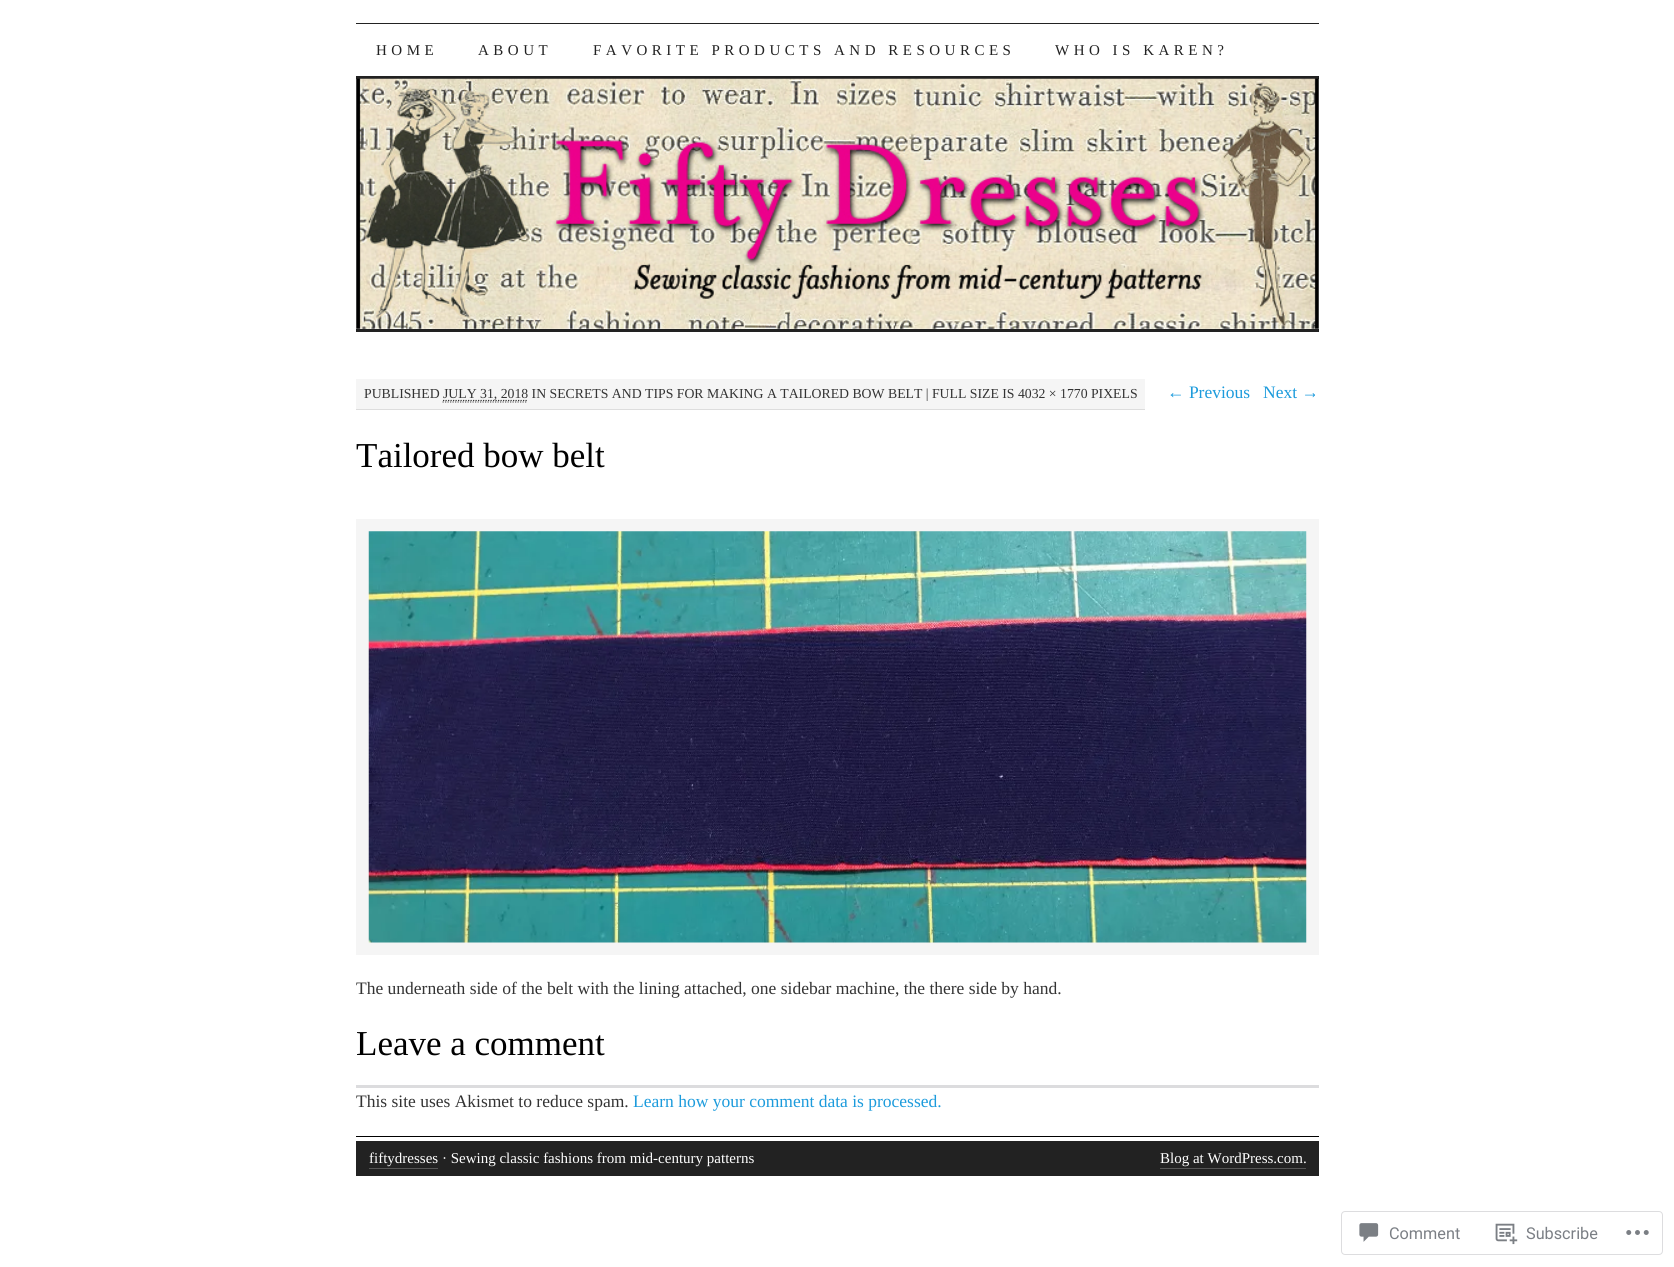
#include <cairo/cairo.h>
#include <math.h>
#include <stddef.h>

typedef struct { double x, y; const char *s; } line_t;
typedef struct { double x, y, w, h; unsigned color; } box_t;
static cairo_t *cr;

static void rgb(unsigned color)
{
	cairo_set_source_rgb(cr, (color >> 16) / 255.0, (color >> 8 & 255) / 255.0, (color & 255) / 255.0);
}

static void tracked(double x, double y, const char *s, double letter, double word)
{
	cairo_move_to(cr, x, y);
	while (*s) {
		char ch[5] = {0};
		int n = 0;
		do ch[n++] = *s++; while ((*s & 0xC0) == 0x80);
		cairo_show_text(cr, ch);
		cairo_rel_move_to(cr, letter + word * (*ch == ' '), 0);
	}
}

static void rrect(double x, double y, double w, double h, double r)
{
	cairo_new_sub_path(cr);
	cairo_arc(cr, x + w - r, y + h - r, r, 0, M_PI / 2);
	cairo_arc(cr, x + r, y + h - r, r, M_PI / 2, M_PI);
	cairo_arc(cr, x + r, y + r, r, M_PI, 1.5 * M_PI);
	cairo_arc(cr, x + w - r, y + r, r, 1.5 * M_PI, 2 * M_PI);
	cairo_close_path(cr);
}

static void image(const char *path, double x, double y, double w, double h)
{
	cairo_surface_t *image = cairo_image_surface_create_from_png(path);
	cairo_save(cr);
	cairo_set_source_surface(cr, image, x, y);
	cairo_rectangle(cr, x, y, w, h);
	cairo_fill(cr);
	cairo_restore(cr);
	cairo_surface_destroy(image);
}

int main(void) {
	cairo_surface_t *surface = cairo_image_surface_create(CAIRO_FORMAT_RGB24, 1674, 1267);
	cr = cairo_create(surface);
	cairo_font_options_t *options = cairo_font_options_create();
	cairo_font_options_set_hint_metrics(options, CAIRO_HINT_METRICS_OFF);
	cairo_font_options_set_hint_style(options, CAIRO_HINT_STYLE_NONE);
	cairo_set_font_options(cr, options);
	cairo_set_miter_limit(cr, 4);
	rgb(0xffffff);
	cairo_paint(cr);
	rgb(0x222222);
	cairo_rectangle(cr, 356, 23, 963, 1);
	cairo_fill(cr);
	cairo_rectangle(cr, 356, 76, 963, 3);
	cairo_fill(cr);
	image("img/1.png", 356, 78, 963, 251);
	{
		static const box_t items[] = {
			{356, 329, 963, 3, 0x222222},
			{356, 379, 789, 30, 0xf5f5f5},
			{356, 409, 789, 1, 0xdddddd},
		};
		for (size_t i = 0; i < sizeof items / sizeof *items; i++) {
			rgb(items[i].color);
			cairo_rectangle(cr, items[i].x, items[i].y, items[i].w, items[i].h);
			cairo_fill(cr);
		}
	}
	cairo_new_path(cr);
	cairo_move_to(cr, 442.5, 402);
	cairo_line_to(cr, 527.5, 402);
	rgb(0x666666);
	cairo_set_line_width(cr, 1.2);
	cairo_set_dash(cr, (double[]){1.25, 1.25}, 2, 0);
	cairo_stroke(cr);
	cairo_new_path(cr);
	cairo_move_to(cr, 443, 400.5);
	cairo_line_to(cr, 528, 400.5);
	rgb(0x333333);
	cairo_stroke(cr);
	rgb(0xf5f5f5);
	cairo_rectangle(cr, 356, 519, 963, 436);
	cairo_fill(cr);
	image("img/2.png", 368, 531, 939, 412);
	{
		static const box_t items[] = {
			{356, 1085, 963, 3, 0xdcdcde},
			{356, 1136, 963, 1, 0x000000},
			{356, 1141, 963, 35, 0x222222},
			{369, 1168, 69, 1, 0x555555},
			{1160, 1168, 146, 1, 0x555555},
		};
		for (size_t i = 0; i < sizeof items / sizeof *items; i++) {
			rgb(items[i].color);
			cairo_rectangle(cr, items[i].x, items[i].y, items[i].w, items[i].h);
			cairo_fill(cr);
		}
	}
	rrect(1341.5, 1211.5, 321, 43, 3.5);
	rgb(0xdddddf);
	cairo_set_line_width(cr, 1);
	cairo_set_dash(cr, NULL, 0, 0);
	cairo_stroke(cr);
	image("img/3.png", 1359, 1223, 20, 19);
	image("img/4.png", 1495, 1223, 23, 22);
	image("img/5.png", 1626, 1230, 23, 5);
	cairo_select_font_face(cr, "Liberation Serif", CAIRO_FONT_SLANT_NORMAL, CAIRO_FONT_WEIGHT_NORMAL);
	cairo_set_font_size(cr, 15);
	rgb(0x222222);
	{
		static const line_t items[] = {
			{376, 55, "HOME"},
			{478, 55, "ABOUT"},
			{593, 55, "FAVORITE PRODUCTS AND RESOURCES"},
			{1055, 55, "WHO IS KAREN?"},
		};
		for (size_t i = 0; i < sizeof items / sizeof *items; i++) {
			tracked(items[i].x, items[i].y, items[i].s, 4.5, 0);
		}
	}
	cairo_set_font_size(cr, 13.75);
	rgb(0x333333);
	cairo_move_to(cr, 364, 398);
	cairo_show_text(cr, "PUBLISHED");
	cairo_move_to(cr, 443, 398);
	cairo_show_text(cr, "JULY 31, 2018 IN SECRETS AND TIPS FOR MAKING A TAILORED BOW BELT | FULL SIZE IS 4032 × 1770 PIXELS");
	cairo_set_font_size(cr, 17.5);
	rgb(0x1c9bdc);
	cairo_move_to(cr, 1167, 398);
	cairo_show_text(cr, "← Previous");
	cairo_move_to(cr, 1263, 398);
	cairo_show_text(cr, "Next →");
	cairo_set_font_size(cr, 35);
	rgb(0x000000);
	cairo_move_to(cr, 356, 467);
	cairo_show_text(cr, "Tailored bow belt");
	cairo_set_font_size(cr, 17.5);
	rgb(0x333333);
	cairo_move_to(cr, 356, 994);
	cairo_show_text(cr, "The underneath side of the belt with the lining attached, one sidebar machine, the there side by hand.");
	cairo_set_font_size(cr, 35);
	rgb(0x000000);
	cairo_move_to(cr, 356, 1055);
	cairo_show_text(cr, "Leave a comment");
	cairo_set_font_size(cr, 17.5);
	rgb(0x333333);
	cairo_move_to(cr, 356, 1107);
	cairo_show_text(cr, "This site uses Akismet to reduce spam.");
	rgb(0x1c9bdc);
	cairo_move_to(cr, 633, 1107);
	cairo_show_text(cr, "Learn how your comment data is processed.");
	cairo_set_font_size(cr, 15);
	rgb(0xffffff);
	cairo_move_to(cr, 369, 1163);
	cairo_show_text(cr, "fiftydresses · Sewing classic fashions from mid-century patterns");
	cairo_move_to(cr, 1160, 1163);
	cairo_show_text(cr, "Blog at WordPress.com.");
	cairo_select_font_face(cr, "Roboto", CAIRO_FONT_SLANT_NORMAL, CAIRO_FONT_WEIGHT_NORMAL);
	cairo_set_font_size(cr, 16.25);
	rgb(0x7b7f85);
	cairo_move_to(cr, 1389, 1239);
	cairo_show_text(cr, "Comment");
	cairo_move_to(cr, 1526, 1239);
	cairo_show_text(cr, "Subscribe");
	cairo_surface_write_to_png(surface, "page.png");
	cairo_font_options_destroy(options);
	cairo_destroy(cr);
	cairo_surface_destroy(surface);
	return 0;
}
